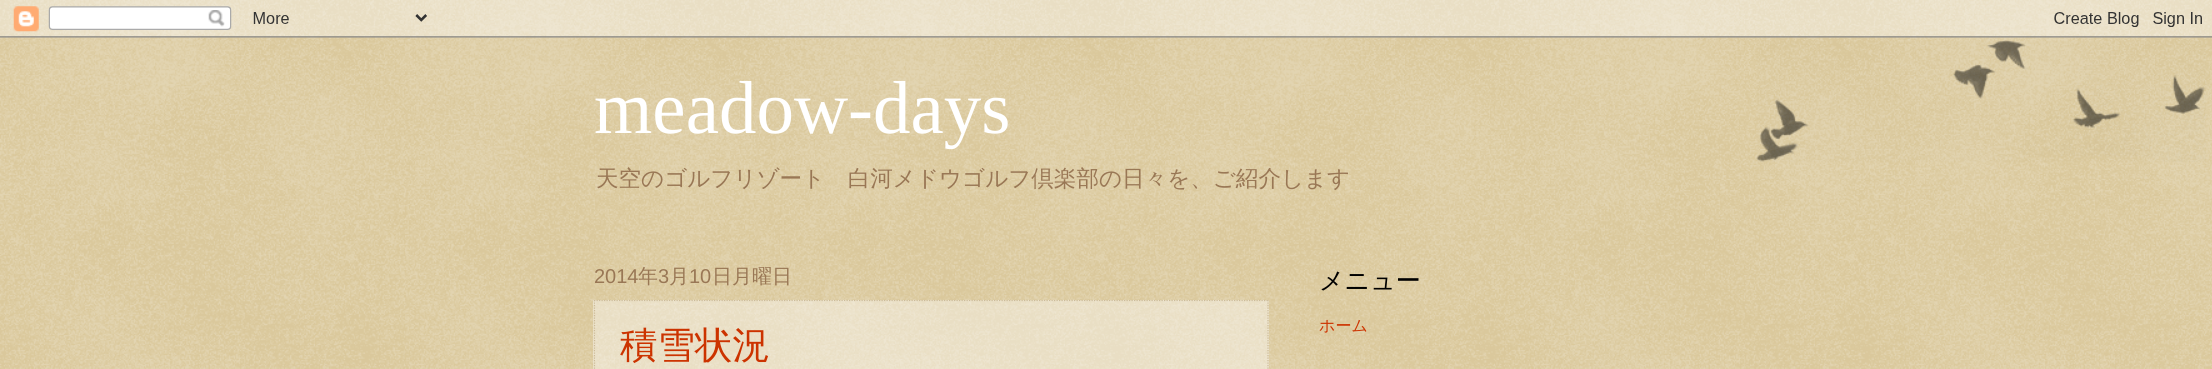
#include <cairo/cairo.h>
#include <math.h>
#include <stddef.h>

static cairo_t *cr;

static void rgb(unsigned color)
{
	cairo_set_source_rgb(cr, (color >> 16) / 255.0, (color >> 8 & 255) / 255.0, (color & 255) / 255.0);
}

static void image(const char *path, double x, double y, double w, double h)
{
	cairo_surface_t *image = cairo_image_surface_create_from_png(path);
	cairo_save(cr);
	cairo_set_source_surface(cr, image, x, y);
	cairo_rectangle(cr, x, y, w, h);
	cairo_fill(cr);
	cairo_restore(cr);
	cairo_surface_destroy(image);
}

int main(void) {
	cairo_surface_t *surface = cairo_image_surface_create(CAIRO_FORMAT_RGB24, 2212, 369);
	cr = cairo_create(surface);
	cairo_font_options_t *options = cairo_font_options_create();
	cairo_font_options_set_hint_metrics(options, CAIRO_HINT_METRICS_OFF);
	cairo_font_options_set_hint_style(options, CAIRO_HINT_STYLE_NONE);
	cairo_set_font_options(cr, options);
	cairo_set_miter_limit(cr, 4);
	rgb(0xc0a154);
	cairo_paint(cr);
	image("img/1.png", 0, 0, 2212, 369);
	image("img/2.png", 0, 0, 2212, 38);
	cairo_set_source_rgba(cr, 1, 1, 1, 0.4);
	cairo_rectangle(cr, 593, 300, 676, 69);
	cairo_fill(cr);
	cairo_new_path(cr);
	cairo_move_to(cr, 594, 300.5);
	cairo_line_to(cr, 1269, 300.5);
	rgb(0xccbb99);
	cairo_set_line_width(cr, 1.2);
	cairo_set_dash(cr, (double[]){1.25, 1.25}, 2, 0);
	cairo_stroke(cr);
	cairo_new_path(cr);
	cairo_move_to(cr, 1268, 300);
	cairo_line_to(cr, 1268, 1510);
	cairo_stroke(cr);
	cairo_new_path(cr);
	cairo_move_to(cr, 594.5, 300);
	cairo_line_to(cr, 594.5, 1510);
	cairo_stroke(cr);
	image("img/3.png", 1756, 40, 450, 122);
	cairo_select_font_face(cr, "Liberation Serif", CAIRO_FONT_SLANT_NORMAL, CAIRO_FONT_WEIGHT_NORMAL);
	cairo_set_font_size(cr, 75);
	rgb(0xffffff);
	cairo_move_to(cr, 594, 133);
	cairo_show_text(cr, "meadow-days");
	cairo_select_font_face(cr, "WenQuanYi Zen Hei Medium", CAIRO_FONT_SLANT_NORMAL, CAIRO_FONT_WEIGHT_NORMAL);
	cairo_set_font_size(cr, 22.55);
	rgb(0x997755);
	cairo_move_to(cr, 596, 186);
	cairo_show_text(cr, "天空のゴルフリゾート　白河メドウゴルフ倶楽部の日々を、ご紹介します");
	cairo_select_font_face(cr, "Liberation Sans", CAIRO_FONT_SLANT_NORMAL, CAIRO_FONT_WEIGHT_NORMAL);
	cairo_set_font_size(cr, 20);
	cairo_move_to(cr, 594, 283);
	cairo_show_text(cr, "2014");
	cairo_select_font_face(cr, "WenQuanYi Zen Hei Medium", CAIRO_FONT_SLANT_NORMAL, CAIRO_FONT_WEIGHT_NORMAL);
	cairo_move_to(cr, 638, 283);
	cairo_show_text(cr, "年");
	cairo_select_font_face(cr, "Liberation Sans", CAIRO_FONT_SLANT_NORMAL, CAIRO_FONT_WEIGHT_NORMAL);
	cairo_move_to(cr, 658, 283);
	cairo_show_text(cr, "3");
	cairo_select_font_face(cr, "WenQuanYi Zen Hei Medium", CAIRO_FONT_SLANT_NORMAL, CAIRO_FONT_WEIGHT_NORMAL);
	cairo_move_to(cr, 669, 283);
	cairo_show_text(cr, "月");
	cairo_select_font_face(cr, "Liberation Sans", CAIRO_FONT_SLANT_NORMAL, CAIRO_FONT_WEIGHT_NORMAL);
	cairo_move_to(cr, 689, 283);
	cairo_show_text(cr, "10");
	cairo_select_font_face(cr, "WenQuanYi Zen Hei Medium", CAIRO_FONT_SLANT_NORMAL, CAIRO_FONT_WEIGHT_NORMAL);
	cairo_move_to(cr, 712, 283);
	cairo_show_text(cr, "日月曜日");
	cairo_set_font_size(cr, 37.5);
	rgb(0xcc3300);
	cairo_move_to(cr, 620, 358);
	cairo_show_text(cr, "積雪状況");
	cairo_set_font_size(cr, 25);
	rgb(0x000000);
	cairo_move_to(cr, 1319, 289);
	cairo_show_text(cr, "メニュー");
	cairo_set_font_size(cr, 16);
	rgb(0xcc3300);
	cairo_move_to(cr, 1319, 331);
	cairo_show_text(cr, "ホーム");
	cairo_surface_write_to_png(surface, "page.png");
	cairo_font_options_destroy(options);
	cairo_destroy(cr);
	cairo_surface_destroy(surface);
	return 0;
}
